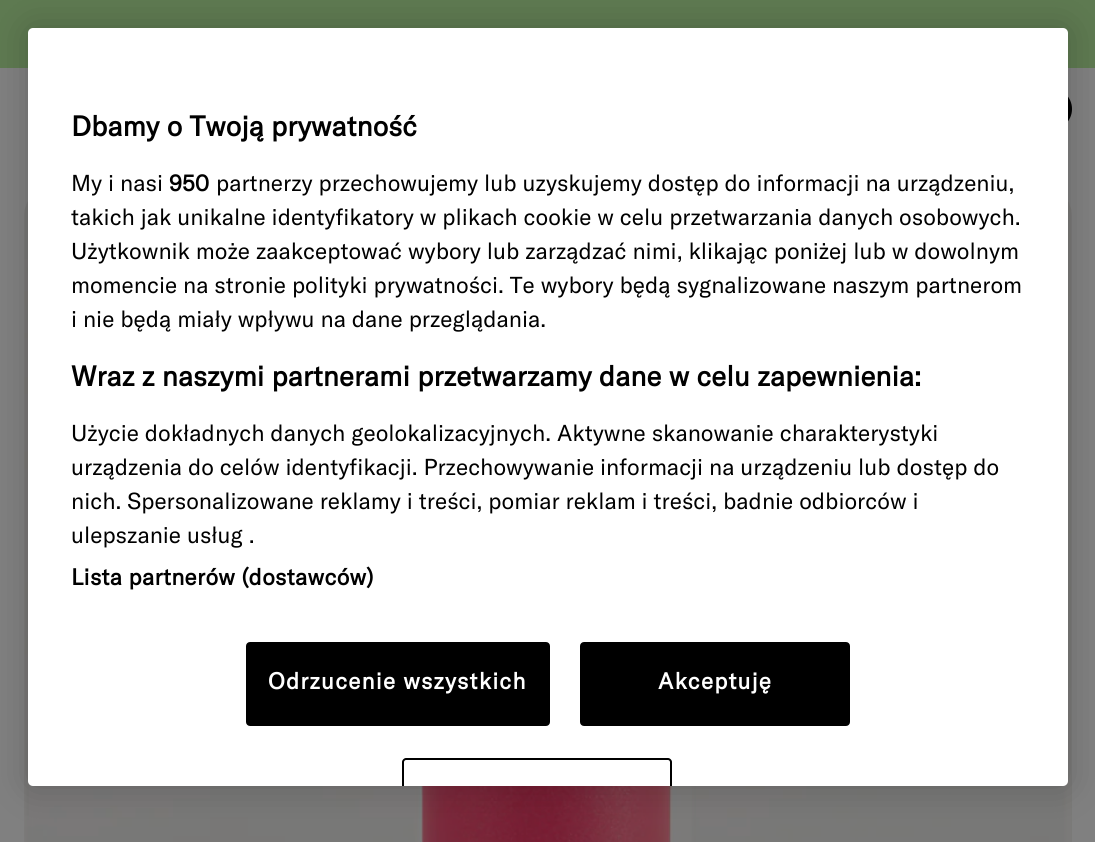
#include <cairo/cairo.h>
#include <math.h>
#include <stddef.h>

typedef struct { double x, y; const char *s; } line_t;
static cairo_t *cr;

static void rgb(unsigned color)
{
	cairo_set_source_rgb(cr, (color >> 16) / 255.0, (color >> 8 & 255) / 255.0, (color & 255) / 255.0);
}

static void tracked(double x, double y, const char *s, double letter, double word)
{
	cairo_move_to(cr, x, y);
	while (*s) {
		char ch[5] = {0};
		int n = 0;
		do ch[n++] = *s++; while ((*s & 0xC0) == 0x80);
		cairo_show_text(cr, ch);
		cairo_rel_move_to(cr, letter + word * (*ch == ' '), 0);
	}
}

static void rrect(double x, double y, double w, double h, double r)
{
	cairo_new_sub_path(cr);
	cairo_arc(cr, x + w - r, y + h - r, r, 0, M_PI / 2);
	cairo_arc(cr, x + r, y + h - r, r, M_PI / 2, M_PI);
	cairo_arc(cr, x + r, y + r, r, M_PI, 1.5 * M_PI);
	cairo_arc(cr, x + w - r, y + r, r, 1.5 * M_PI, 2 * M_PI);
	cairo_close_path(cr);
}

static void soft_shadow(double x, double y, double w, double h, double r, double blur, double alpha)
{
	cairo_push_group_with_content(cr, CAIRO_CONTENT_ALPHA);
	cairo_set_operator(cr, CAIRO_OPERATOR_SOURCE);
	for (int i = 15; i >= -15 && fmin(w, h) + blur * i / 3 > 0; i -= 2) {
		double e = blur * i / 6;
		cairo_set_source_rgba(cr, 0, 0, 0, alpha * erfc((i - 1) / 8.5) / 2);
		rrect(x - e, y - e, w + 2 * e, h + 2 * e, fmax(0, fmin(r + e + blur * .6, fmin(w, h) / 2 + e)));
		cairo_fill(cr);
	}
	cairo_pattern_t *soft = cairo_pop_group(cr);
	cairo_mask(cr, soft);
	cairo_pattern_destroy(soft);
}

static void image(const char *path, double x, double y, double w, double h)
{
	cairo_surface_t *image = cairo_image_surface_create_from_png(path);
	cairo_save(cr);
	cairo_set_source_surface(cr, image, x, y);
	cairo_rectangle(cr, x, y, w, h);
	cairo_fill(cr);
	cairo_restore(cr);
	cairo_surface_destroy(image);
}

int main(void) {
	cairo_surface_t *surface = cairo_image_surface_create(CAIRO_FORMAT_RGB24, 1095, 842);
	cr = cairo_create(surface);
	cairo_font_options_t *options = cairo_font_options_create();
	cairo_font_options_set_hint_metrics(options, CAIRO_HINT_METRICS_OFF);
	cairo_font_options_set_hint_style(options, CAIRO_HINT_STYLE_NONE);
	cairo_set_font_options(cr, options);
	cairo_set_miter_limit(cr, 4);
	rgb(0x808080);
	cairo_paint(cr);
	rgb(0x5e7a51);
	cairo_rectangle(cr, 0, 0, 1095, 68);
	cairo_fill(cr);
	rgb(0x000000);
	cairo_arc(cr, 1051, 109, 21, 0, 2 * M_PI);
	cairo_fill(cr);
	image("img/1.png", 24, 201, 1048, 641);
	rgb(0x000000);
	soft_shadow(28, 28, 1040, 758, 5, 18, 0.2);
	rgb(0xffffff);
	rrect(28, 28, 1040, 758, 5);
	cairo_fill(cr);
	rgb(0x000000);
	rrect(247, 643, 302, 82, 3);
	cairo_fill_preserve(cr);
	cairo_stroke(cr);
	rrect(581, 643, 268, 82, 3);
	cairo_fill_preserve(cr);
	cairo_stroke(cr);
	cairo_new_path(cr);
	cairo_move_to(cr, 406, 758);
	cairo_curve_to(cr, 404, 758, 402, 760, 402, 762);
	cairo_line_to(cr, 402, 786);
	cairo_line_to(cr, 404, 786);
	cairo_line_to(cr, 404, 762);
	cairo_curve_to(cr, 404, 761, 405, 760, 406, 760);
	cairo_line_to(cr, 668, 760);
	cairo_curve_to(cr, 669, 760, 670, 761, 670, 762);
	cairo_line_to(cr, 670, 786);
	cairo_line_to(cr, 672, 786);
	cairo_line_to(cr, 672, 762);
	cairo_curve_to(cr, 672, 760, 670, 758, 668, 758);
	cairo_close_path(cr);
	cairo_fill(cr);
	cairo_select_font_face(cr, "GT America", CAIRO_FONT_SLANT_NORMAL, CAIRO_FONT_WEIGHT_BOLD);
	cairo_set_font_size(cr, 28);
	cairo_move_to(cr, 71, 136);
	cairo_show_text(cr, "Dbamy o Twoją prywatność");
	cairo_select_font_face(cr, "GT America", CAIRO_FONT_SLANT_NORMAL, CAIRO_FONT_WEIGHT_NORMAL);
	cairo_set_font_size(cr, 22.75);
	cairo_move_to(cr, 71, 191);
	cairo_show_text(cr, "My i nasi");
	cairo_select_font_face(cr, "GT America", CAIRO_FONT_SLANT_NORMAL, CAIRO_FONT_WEIGHT_BOLD);
	cairo_move_to(cr, 169, 191);
	cairo_show_text(cr, "950");
	cairo_select_font_face(cr, "GT America", CAIRO_FONT_SLANT_NORMAL, CAIRO_FONT_WEIGHT_NORMAL);
	{
		static const line_t items[] = {
			{216, 191, "partnerzy przechowujemy lub uzyskujemy dostęp do informacji na urządzeniu,"},
			{71, 225, "takich jak unikalne identyfikatory w plikach cookie w celu przetwarzania danych osobowych."},
			{71, 259, "Użytkownik może zaakceptować wybory lub zarządzać nimi, klikając poniżej lub w dowolnym"},
			{71, 293, "momencie na stronie polityki prywatności. Te wybory będą sygnalizowane naszym partnerom"},
			{71, 327, "i nie będą miały wpływu na dane przeglądania."},
		};
		for (size_t i = 0; i < sizeof items / sizeof *items; i++) {
			cairo_move_to(cr, items[i].x, items[i].y);
			cairo_show_text(cr, items[i].s);
		}
	}
	cairo_select_font_face(cr, "GT America", CAIRO_FONT_SLANT_NORMAL, CAIRO_FONT_WEIGHT_BOLD);
	cairo_set_font_size(cr, 28);
	cairo_move_to(cr, 71, 386);
	cairo_show_text(cr, "Wraz z naszymi partnerami przetwarzamy dane w celu zapewnienia:");
	cairo_select_font_face(cr, "GT America", CAIRO_FONT_SLANT_NORMAL, CAIRO_FONT_WEIGHT_NORMAL);
	cairo_set_font_size(cr, 22.75);
	{
		static const line_t items[] = {
			{71, 441, "Użycie dokładnych danych geolokalizacyjnych. Aktywne skanowanie charakterystyki"},
			{71, 475, "urządzenia do celów identyfikacji. Przechowywanie informacji na urządzeniu lub dostęp do"},
			{71, 509, "nich. Spersonalizowane reklamy i treści, pomiar reklam i treści,"},
			{723, 509, "badnie odbiorców i"},
			{71, 543, "ulepszanie usług ."},
		};
		for (size_t i = 0; i < sizeof items / sizeof *items; i++) {
			cairo_move_to(cr, items[i].x, items[i].y);
			cairo_show_text(cr, items[i].s);
		}
	}
	cairo_select_font_face(cr, "GT America", CAIRO_FONT_SLANT_NORMAL, CAIRO_FONT_WEIGHT_BOLD);
	tracked(71, 585, "Lista partnerów (dostawców)", 0.25, 0);
	rgb(0xffffff);
	tracked(268, 689, "Odrzucenie wszystkich", 1.1, 0);
	tracked(658, 689, "Akceptuję", 1.1, 0);
	cairo_surface_write_to_png(surface, "page.png");
	cairo_font_options_destroy(options);
	cairo_destroy(cr);
	cairo_surface_destroy(surface);
	return 0;
}
